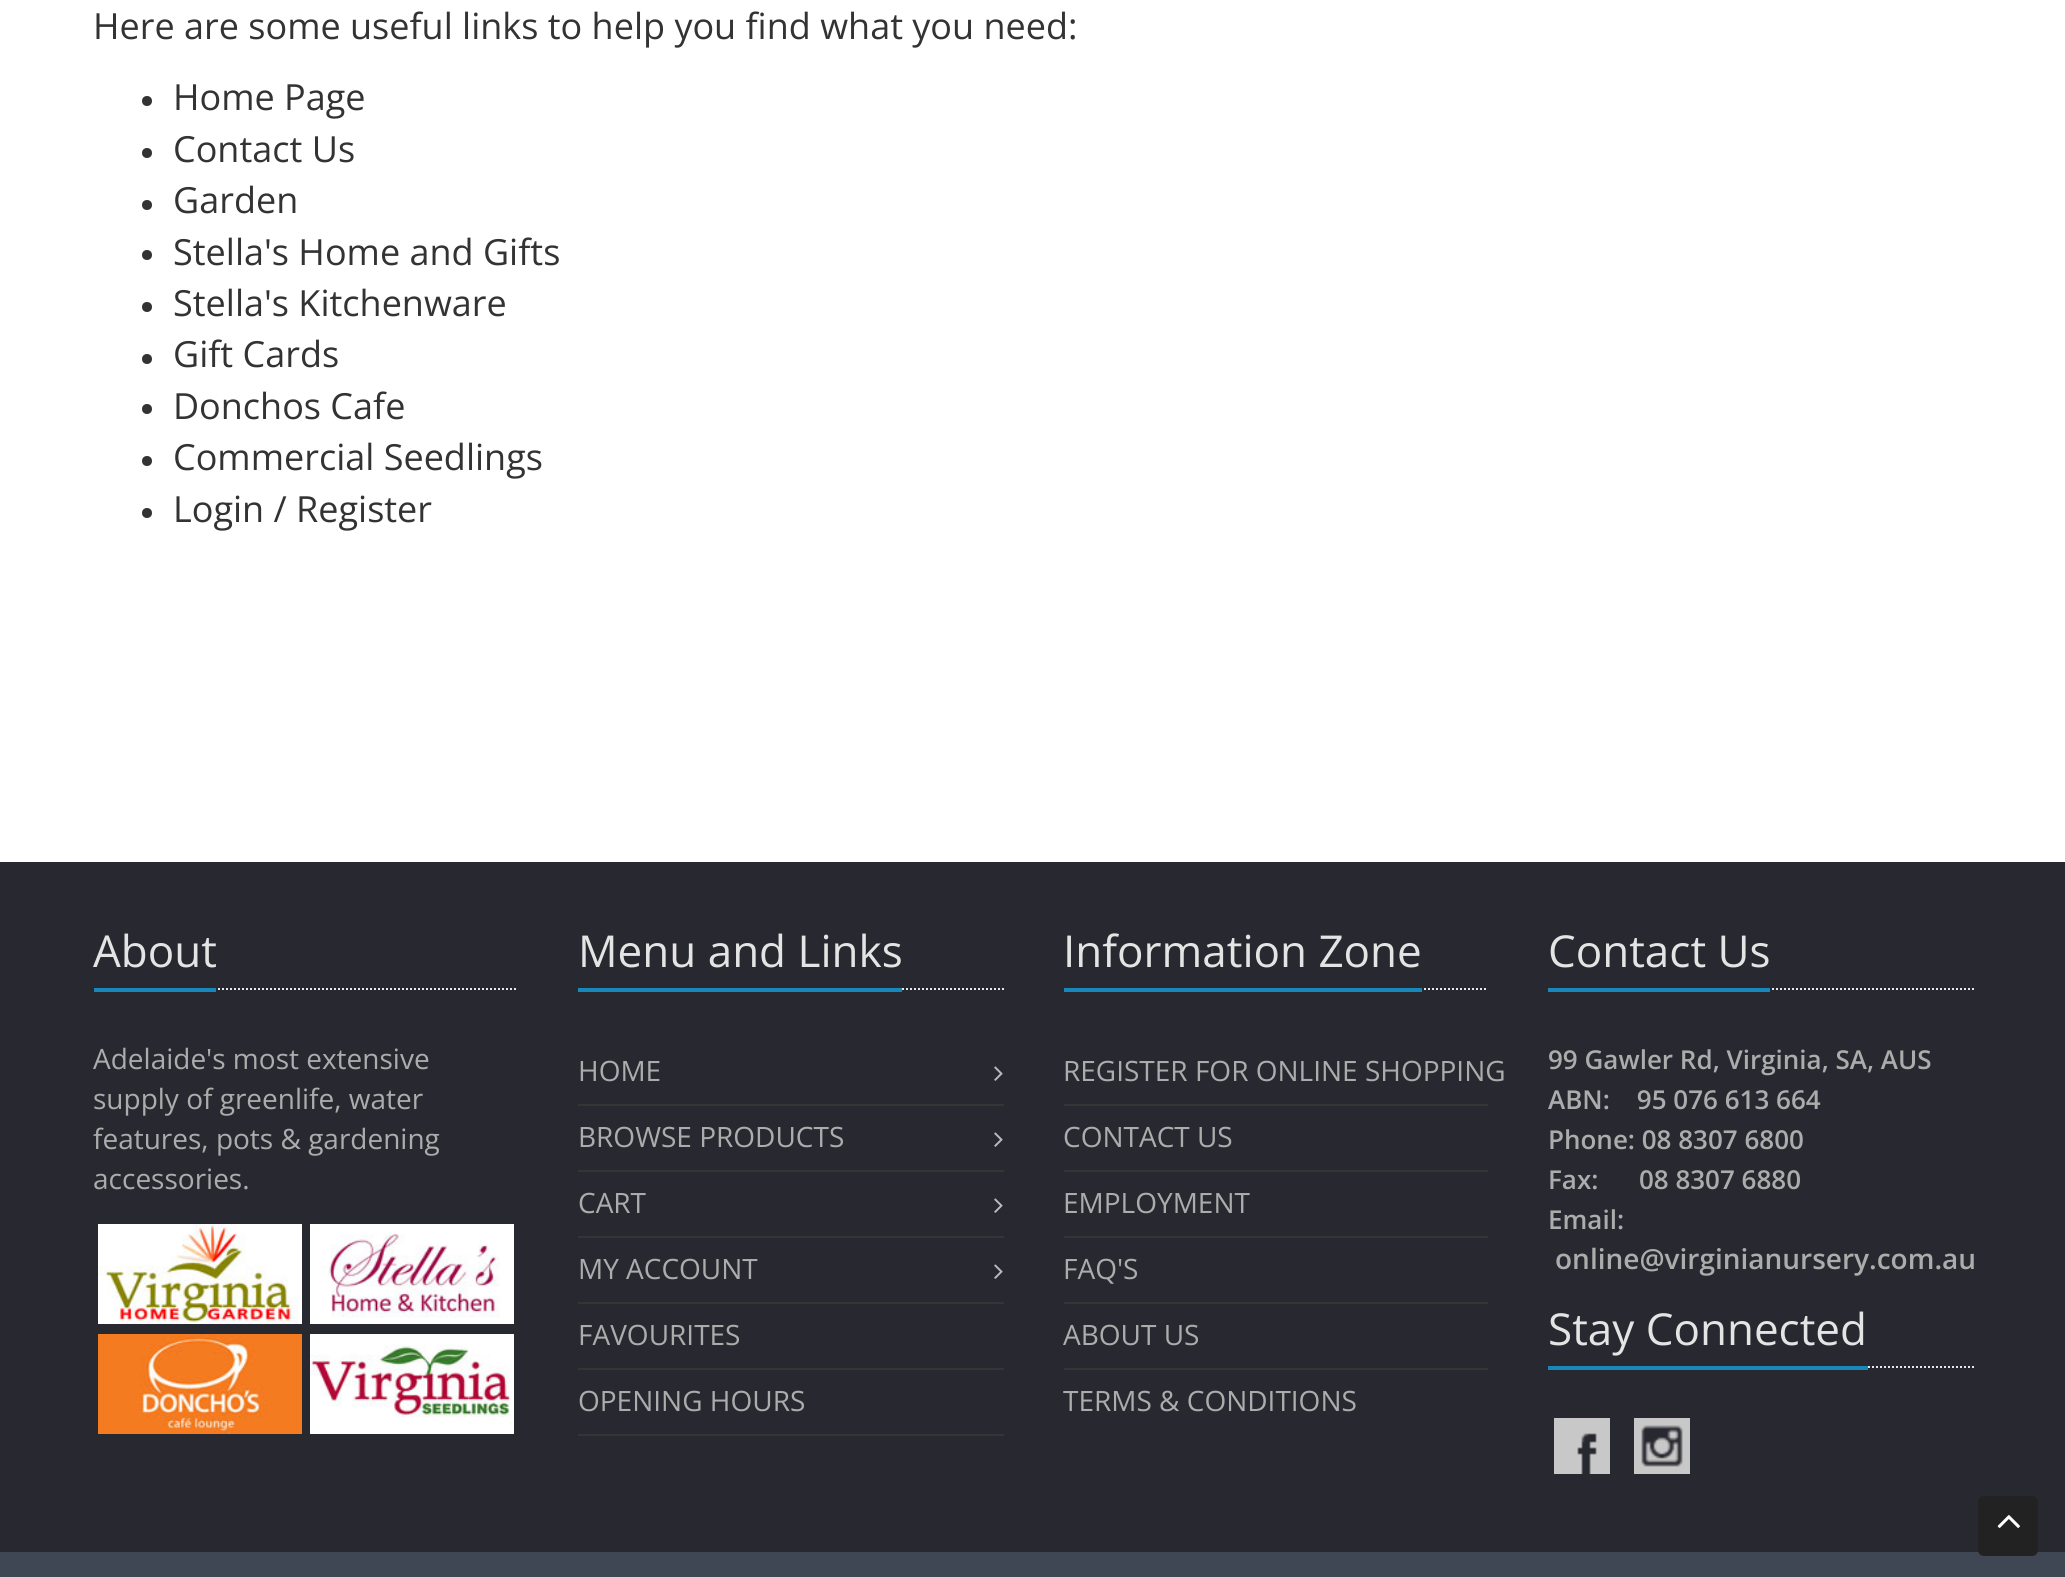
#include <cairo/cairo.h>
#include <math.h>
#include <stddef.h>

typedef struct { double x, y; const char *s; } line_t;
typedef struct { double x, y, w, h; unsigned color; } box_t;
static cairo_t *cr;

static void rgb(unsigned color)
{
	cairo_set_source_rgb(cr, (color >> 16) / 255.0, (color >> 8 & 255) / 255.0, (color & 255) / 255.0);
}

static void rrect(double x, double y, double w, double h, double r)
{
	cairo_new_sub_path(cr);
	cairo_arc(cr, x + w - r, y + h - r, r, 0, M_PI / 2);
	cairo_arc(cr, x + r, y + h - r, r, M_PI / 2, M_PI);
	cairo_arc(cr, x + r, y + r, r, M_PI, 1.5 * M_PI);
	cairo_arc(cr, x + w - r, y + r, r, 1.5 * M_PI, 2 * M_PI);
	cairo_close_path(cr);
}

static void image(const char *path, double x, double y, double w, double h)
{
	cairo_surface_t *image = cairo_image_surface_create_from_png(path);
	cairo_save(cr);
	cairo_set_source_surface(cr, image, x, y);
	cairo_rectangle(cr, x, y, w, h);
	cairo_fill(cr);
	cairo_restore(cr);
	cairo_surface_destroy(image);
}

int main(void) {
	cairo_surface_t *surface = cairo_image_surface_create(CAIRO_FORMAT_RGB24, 2065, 1577);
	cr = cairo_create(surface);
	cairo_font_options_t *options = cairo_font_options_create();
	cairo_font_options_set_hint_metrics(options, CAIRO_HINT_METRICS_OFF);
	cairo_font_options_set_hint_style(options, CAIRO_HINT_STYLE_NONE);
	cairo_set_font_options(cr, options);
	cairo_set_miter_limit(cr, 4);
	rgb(0xffffff);
	cairo_paint(cr);
	rgb(0x333333);
	cairo_arc(cr, 147, 101, 5, 0, 2 * M_PI);
	cairo_fill(cr);
	cairo_arc(cr, 147, 153, 5, 0, 2 * M_PI);
	cairo_fill(cr);
	cairo_arc(cr, 147, 205, 5, 0, 2 * M_PI);
	cairo_fill(cr);
	cairo_arc(cr, 147, 255, 5, 0, 2 * M_PI);
	cairo_fill(cr);
	cairo_arc(cr, 147, 307, 5, 0, 2 * M_PI);
	cairo_fill(cr);
	cairo_arc(cr, 147, 359, 5, 0, 2 * M_PI);
	cairo_fill(cr);
	cairo_arc(cr, 147, 409, 5, 0, 2 * M_PI);
	cairo_fill(cr);
	cairo_arc(cr, 147, 461, 5, 0, 2 * M_PI);
	cairo_fill(cr);
	cairo_arc(cr, 147, 513, 5, 0, 2 * M_PI);
	cairo_fill(cr);
	rgb(0x282830);
	cairo_rectangle(cr, 0, 862, 2065, 690);
	cairo_fill(cr);
	cairo_new_path(cr);
	cairo_move_to(cr, 94, 989);
	cairo_line_to(cr, 518, 989);
	rgb(0xe4e9f0);
	cairo_set_dash(cr, (double[]){2, 2}, 2, 0);
	cairo_stroke(cr);
	rgb(0x1888ba);
	cairo_rectangle(cr, 94, 988, 122, 4);
	cairo_fill(cr);
	image("img/1.png", 98, 1224, 204, 100);
	image("img/2.png", 310, 1224, 204, 100);
	image("img/3.png", 98, 1334, 204, 100);
	image("img/4.png", 310, 1334, 204, 100);
	cairo_new_path(cr);
	cairo_move_to(cr, 578, 989);
	cairo_line_to(cr, 1004, 989);
	rgb(0xe4e9f0);
	cairo_stroke(cr);
	rgb(0x1888ba);
	cairo_rectangle(cr, 578, 988, 324, 4);
	cairo_fill(cr);
	image("img/5.png", 994, 1066, 9, 15);
	rgb(0x353535);
	cairo_rectangle(cr, 578, 1104, 426, 2);
	cairo_fill(cr);
	image("img/5.png", 994, 1132, 9, 15);
	cairo_rectangle(cr, 578, 1170, 426, 2);
	cairo_fill(cr);
	image("img/5.png", 994, 1198, 9, 15);
	cairo_rectangle(cr, 578, 1236, 426, 2);
	cairo_fill(cr);
	image("img/5.png", 994, 1264, 9, 15);
	{
		static const box_t items[] = {
			{578, 1302, 426, 2, 0x353535},
			{578, 1368, 426, 2, 0x353535},
			{578, 1434, 426, 2, 0x353535},
		};
		for (size_t i = 0; i < sizeof items / sizeof *items; i++) {
			rgb(items[i].color);
			cairo_rectangle(cr, items[i].x, items[i].y, items[i].w, items[i].h);
			cairo_fill(cr);
		}
	}
	cairo_new_path(cr);
	cairo_move_to(cr, 1064, 989);
	cairo_line_to(cr, 1488, 989);
	rgb(0xe4e9f0);
	cairo_stroke(cr);
	{
		static const box_t items[] = {
			{1064, 988, 358, 4, 0x1888ba},
			{1064, 1104, 424, 2, 0x353535},
			{1064, 1170, 424, 2, 0x353535},
			{1064, 1236, 424, 2, 0x353535},
			{1064, 1302, 424, 2, 0x353535},
			{1064, 1368, 424, 2, 0x353535},
		};
		for (size_t i = 0; i < sizeof items / sizeof *items; i++) {
			rgb(items[i].color);
			cairo_rectangle(cr, items[i].x, items[i].y, items[i].w, items[i].h);
			cairo_fill(cr);
		}
	}
	cairo_new_path(cr);
	cairo_move_to(cr, 1548, 989);
	cairo_line_to(cr, 1974, 989);
	rgb(0xe4e9f0);
	cairo_stroke(cr);
	rgb(0x1888ba);
	cairo_rectangle(cr, 1548, 988, 222, 4);
	cairo_fill(cr);
	cairo_new_path(cr);
	cairo_move_to(cr, 1548, 1367);
	cairo_line_to(cr, 1974, 1367);
	rgb(0xe4e9f0);
	cairo_stroke(cr);
	rgb(0x1888ba);
	cairo_rectangle(cr, 1548, 1366, 320, 4);
	cairo_fill(cr);
	image("img/6.png", 1554, 1418, 56, 56);
	image("img/7.png", 1634, 1418, 56, 56);
	rgb(0x3e4753);
	cairo_rectangle(cr, 0, 1552, 2065, 25);
	cairo_fill(cr);
	rgb(0x222222);
	rrect(1978, 1496, 60, 60, 6);
	cairo_fill(cr);
	image("img/8.png", 1997, 1515, 23, 13);
	cairo_select_font_face(cr, "Open Sans", CAIRO_FONT_SLANT_NORMAL, CAIRO_FONT_WEIGHT_NORMAL);
	cairo_set_font_size(cr, 36);
	rgb(0x333333);
	{
		static const line_t items[] = {
			{93, 39, "Here are some useful links to help you find what you need:"},
			{173, 110, "Home Page"},
			{173, 162, "Contact Us"},
			{173, 213, "Garden"},
			{173, 265, "Stella's Home and Gifts"},
			{173, 316, "Stella's Kitchenware"},
			{173, 367, "Gift Cards"},
			{173, 419, "Donchos Cafe"},
			{173, 470, "Commercial Seedlings"},
			{173, 522, "Login / Register"},
		};
		for (size_t i = 0; i < sizeof items / sizeof *items; i++) {
			cairo_move_to(cr, items[i].x, items[i].y);
			cairo_show_text(cr, items[i].s);
		}
	}
	cairo_set_font_size(cr, 44);
	rgb(0xe4e4e4);
	cairo_move_to(cr, 93, 967);
	cairo_show_text(cr, "About");
	cairo_set_font_size(cr, 28);
	rgb(0xacacac);
	{
		static const line_t items[] = {
			{93, 1069, "Adelaide's most extensive"},
			{93, 1109, "supply of greenlife, water"},
			{93, 1149, "features, pots & gardening"},
			{93, 1189, "accessories."},
		};
		for (size_t i = 0; i < sizeof items / sizeof *items; i++) {
			cairo_move_to(cr, items[i].x, items[i].y);
			cairo_show_text(cr, items[i].s);
		}
	}
	cairo_set_font_size(cr, 44);
	rgb(0xe4e4e4);
	cairo_move_to(cr, 578, 967);
	cairo_show_text(cr, "Menu and Links");
	cairo_set_font_size(cr, 28);
	rgb(0xacacac);
	{
		static const line_t items[] = {
			{578, 1081, "HOME"},
			{578, 1147, "BROWSE PRODUCTS"},
			{578, 1213, "CART"},
			{578, 1279, "MY ACCOUNT"},
			{578, 1345, "FAVOURITES"},
			{578, 1411, "OPENING HOURS"},
		};
		for (size_t i = 0; i < sizeof items / sizeof *items; i++) {
			cairo_move_to(cr, items[i].x, items[i].y);
			cairo_show_text(cr, items[i].s);
		}
	}
	cairo_set_font_size(cr, 44);
	rgb(0xe4e4e4);
	cairo_move_to(cr, 1063, 967);
	cairo_show_text(cr, "Information Zone");
	cairo_set_font_size(cr, 28);
	rgb(0xacacac);
	{
		static const line_t items[] = {
			{1063, 1081, "REGISTER FOR ONLINE SHOPPING"},
			{1063, 1147, "CONTACT US"},
			{1063, 1213, "EMPLOYMENT"},
			{1063, 1279, "FAQ'S"},
			{1063, 1345, "ABOUT US"},
			{1063, 1411, "TERMS & CONDITIONS"},
		};
		for (size_t i = 0; i < sizeof items / sizeof *items; i++) {
			cairo_move_to(cr, items[i].x, items[i].y);
			cairo_show_text(cr, items[i].s);
		}
	}
	cairo_set_font_size(cr, 44);
	rgb(0xe4e4e4);
	cairo_move_to(cr, 1548, 967);
	cairo_show_text(cr, "Contact Us");
	cairo_select_font_face(cr, "Open Sans SemiBold", CAIRO_FONT_SLANT_NORMAL, CAIRO_FONT_WEIGHT_NORMAL);
	cairo_set_font_size(cr, 26);
	rgb(0xacacac);
	{
		static const line_t items[] = {
			{1548, 1069, "99 Gawler Rd, Virginia, SA, AUS"},
			{1548, 1109, "ABN:    95 076 613 664"},
			{1548, 1149, "Phone: 08 8307 6800"},
			{1548, 1189, "Fax:      08 8307 6880"},
			{1548, 1229, "Email:"},
		};
		for (size_t i = 0; i < sizeof items / sizeof *items; i++) {
			cairo_move_to(cr, items[i].x, items[i].y);
			cairo_show_text(cr, items[i].s);
		}
	}
	cairo_set_font_size(cr, 28);
	cairo_move_to(cr, 1555, 1269);
	cairo_show_text(cr, "online@virginianursery.com.au");
	cairo_select_font_face(cr, "Open Sans", CAIRO_FONT_SLANT_NORMAL, CAIRO_FONT_WEIGHT_NORMAL);
	cairo_set_font_size(cr, 44);
	rgb(0xe4e4e4);
	cairo_move_to(cr, 1548, 1345);
	cairo_show_text(cr, "Stay Connected");
	cairo_surface_write_to_png(surface, "page.png");
	cairo_font_options_destroy(options);
	cairo_destroy(cr);
	cairo_surface_destroy(surface);
	return 0;
}
